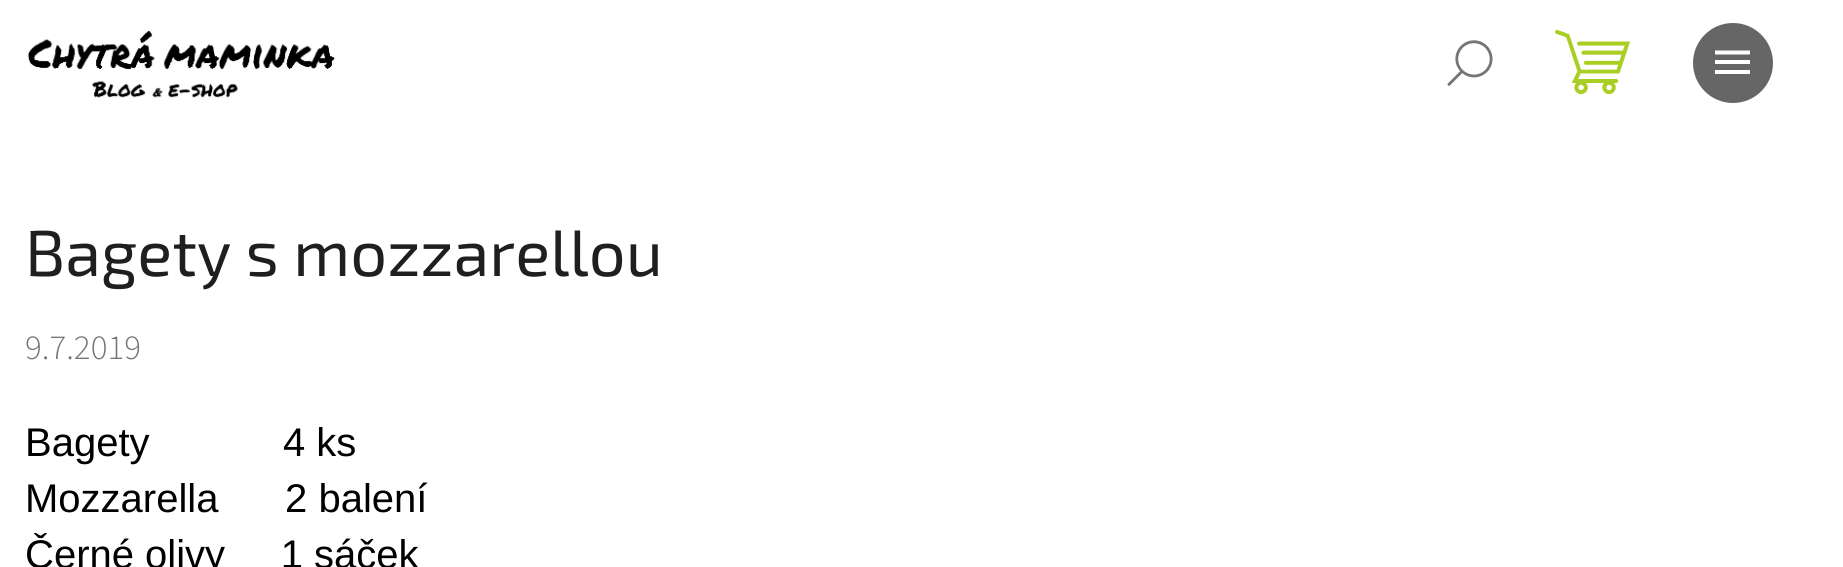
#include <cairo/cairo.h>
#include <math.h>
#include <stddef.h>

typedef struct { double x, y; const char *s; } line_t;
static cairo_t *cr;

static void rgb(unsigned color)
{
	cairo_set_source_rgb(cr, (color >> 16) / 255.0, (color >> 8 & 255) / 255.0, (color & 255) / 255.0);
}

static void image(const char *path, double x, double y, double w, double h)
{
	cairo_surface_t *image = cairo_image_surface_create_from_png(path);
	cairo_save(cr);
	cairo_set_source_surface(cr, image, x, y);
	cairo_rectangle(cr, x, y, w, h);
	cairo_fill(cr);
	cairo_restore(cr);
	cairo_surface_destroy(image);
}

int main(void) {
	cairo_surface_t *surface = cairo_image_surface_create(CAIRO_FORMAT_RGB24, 1843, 567);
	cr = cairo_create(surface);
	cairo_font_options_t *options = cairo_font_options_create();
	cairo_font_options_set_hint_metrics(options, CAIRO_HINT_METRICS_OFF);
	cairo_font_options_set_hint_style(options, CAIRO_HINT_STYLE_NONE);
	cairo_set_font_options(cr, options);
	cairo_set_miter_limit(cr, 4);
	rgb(0xffffff);
	cairo_paint(cr);
	image("img/1.png", 1447, 40, 46, 46);
	rgb(0x666666);
	cairo_arc(cr, 1733, 63, 40, 0, 2 * M_PI);
	cairo_fill(cr);
	rgb(0xffffff);
	cairo_new_path(cr);
	cairo_move_to(cr, 1715, 74);
	cairo_line_to(cr, 1750, 74);
	cairo_line_to(cr, 1750, 70);
	cairo_line_to(cr, 1715, 70);
	cairo_close_path(cr);
	cairo_move_to(cr, 1715, 64);
	cairo_line_to(cr, 1750, 64);
	cairo_line_to(cr, 1750, 60);
	cairo_line_to(cr, 1715, 60);
	cairo_close_path(cr);
	cairo_move_to(cr, 1715, 50.5);
	cairo_line_to(cr, 1715, 54.5);
	cairo_line_to(cr, 1750, 54.5);
	cairo_line_to(cr, 1750, 50.5);
	cairo_close_path(cr);
	cairo_fill(cr);
	image("img/2.png", 27, 30, 308, 68);
	image("img/3.png", 1555, 29, 75, 66);
	cairo_select_font_face(cr, "Exo 2", CAIRO_FONT_SLANT_NORMAL, CAIRO_FONT_WEIGHT_NORMAL);
	cairo_set_font_size(cr, 65);
	rgb(0x1f1f1f);
	cairo_move_to(cr, 25, 276);
	cairo_show_text(cr, "Bagety s mozzarellou");
	cairo_select_font_face(cr, "Source Sans 3 Light", CAIRO_FONT_SLANT_NORMAL, CAIRO_FONT_WEIGHT_NORMAL);
	cairo_set_font_size(cr, 35);
	rgb(0x767676);
	cairo_move_to(cr, 25, 359);
	cairo_show_text(cr, "9.7.2019");
	cairo_select_font_face(cr, "Liberation Sans", CAIRO_FONT_SLANT_NORMAL, CAIRO_FONT_WEIGHT_NORMAL);
	cairo_set_font_size(cr, 40);
	rgb(0x000000);
	{
		static const line_t items[] = {
			{25, 456, "Bagety            4 ks"},
			{25, 512, "Mozzarella      2 balení"},
			{25, 568, "Černé olivy     1 sáček"},
		};
		for (size_t i = 0; i < sizeof items / sizeof *items; i++) {
			cairo_move_to(cr, items[i].x, items[i].y);
			cairo_show_text(cr, items[i].s);
		}
	}
	cairo_surface_write_to_png(surface, "page.png");
	cairo_font_options_destroy(options);
	cairo_destroy(cr);
	cairo_surface_destroy(surface);
	return 0;
}
